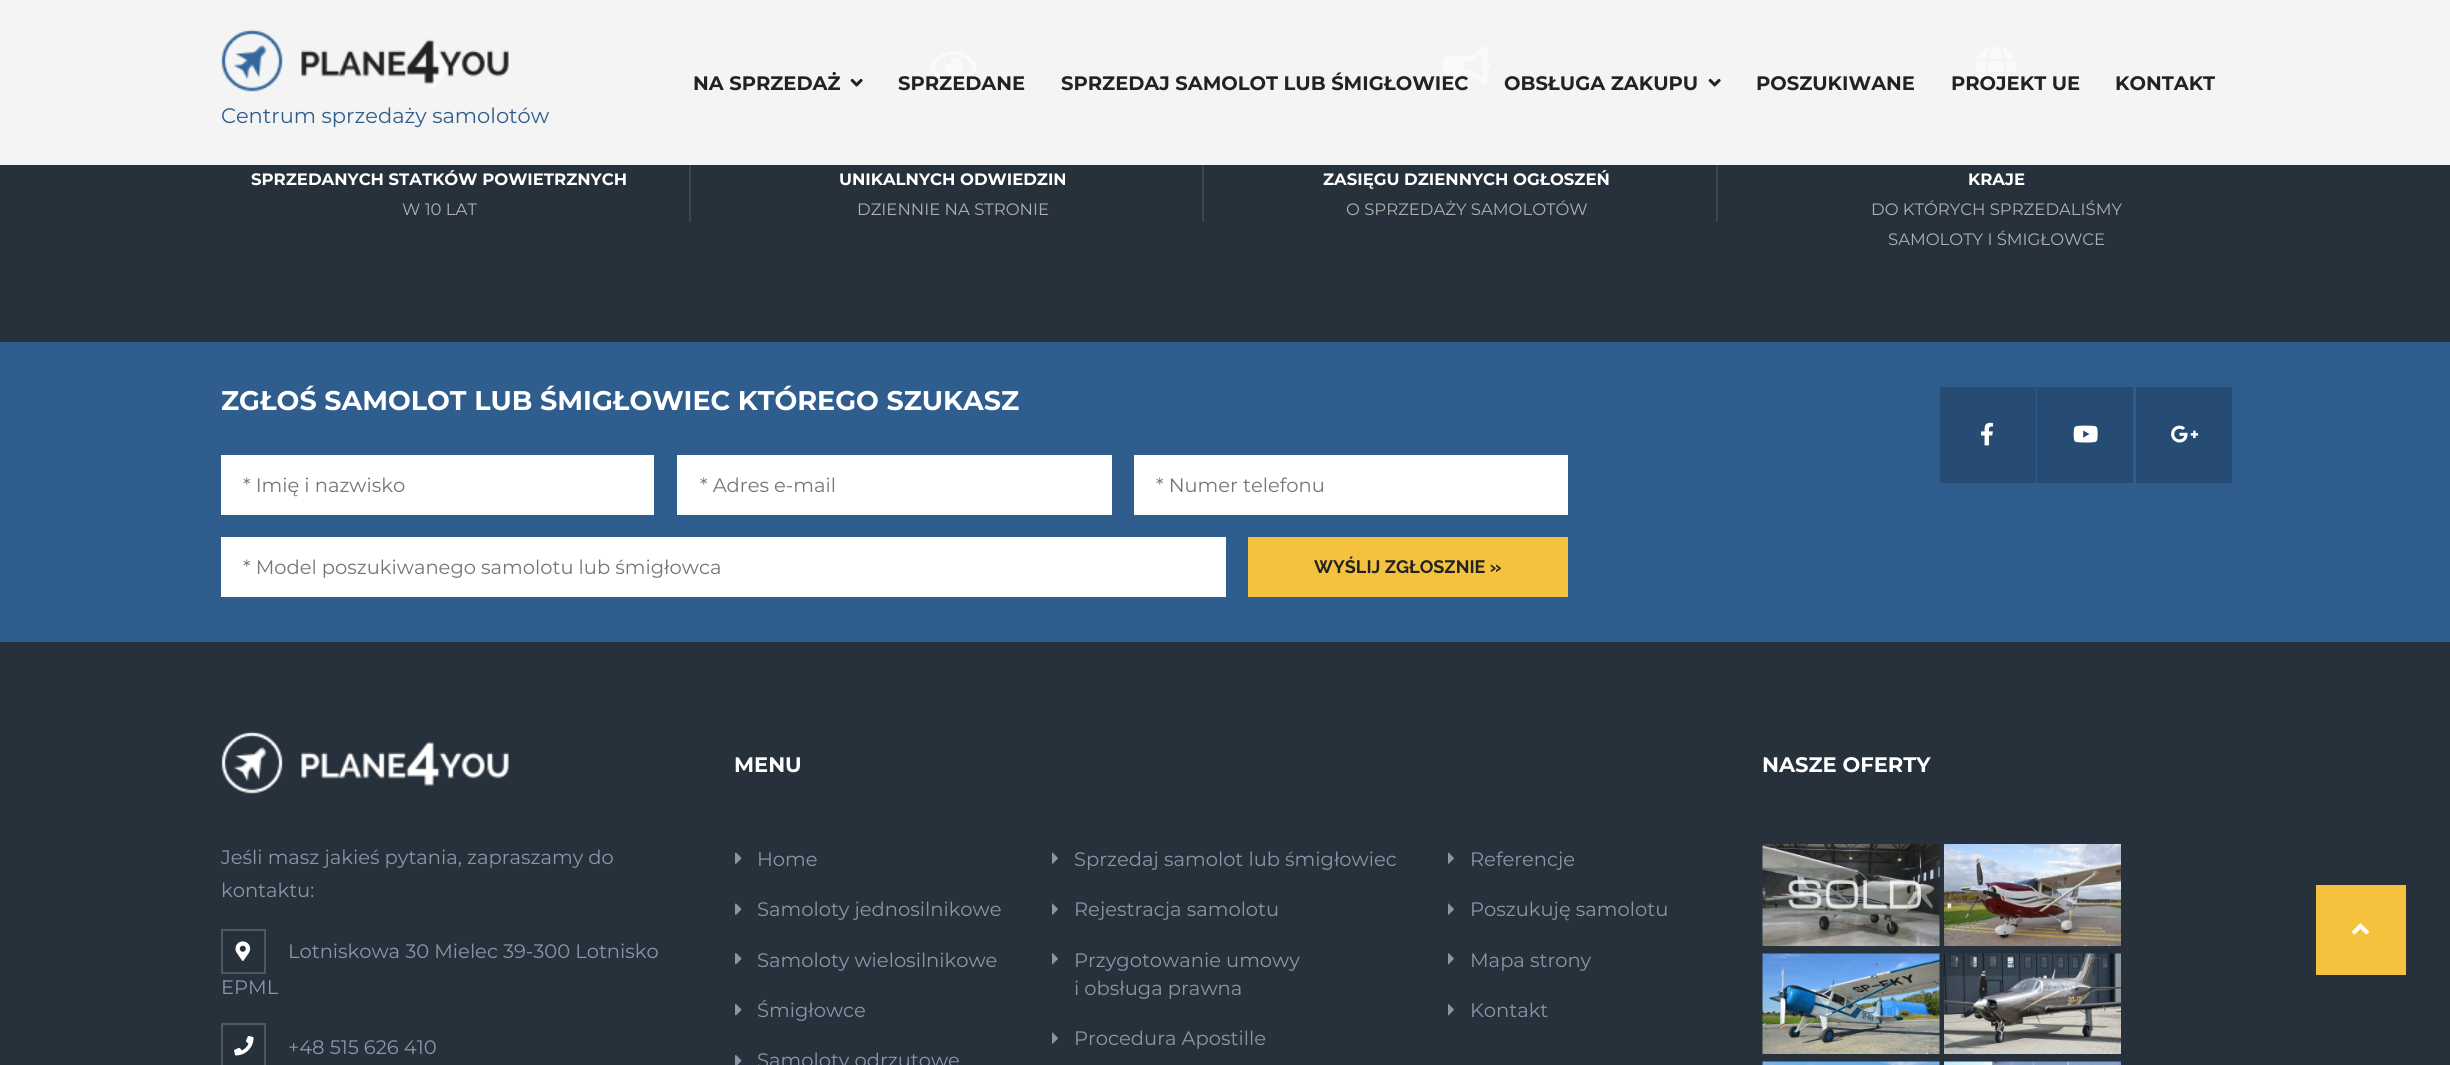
#include <cairo/cairo.h>
#include <math.h>
#include <stddef.h>

typedef struct { double x, y; const char *s; } line_t;
typedef struct { double x, y, w, h; unsigned color; } box_t;
static cairo_t *cr;

static void rgb(unsigned color)
{
	cairo_set_source_rgb(cr, (color >> 16) / 255.0, (color >> 8 & 255) / 255.0, (color & 255) / 255.0);
}

static void image(const char *path, double x, double y, double w, double h)
{
	cairo_surface_t *image = cairo_image_surface_create_from_png(path);
	cairo_save(cr);
	cairo_set_source_surface(cr, image, x, y);
	cairo_rectangle(cr, x, y, w, h);
	cairo_fill(cr);
	cairo_restore(cr);
	cairo_surface_destroy(image);
}

int main(void) {
	cairo_surface_t *surface = cairo_image_surface_create(CAIRO_FORMAT_RGB24, 2450, 1065);
	cr = cairo_create(surface);
	cairo_font_options_t *options = cairo_font_options_create();
	cairo_font_options_set_hint_metrics(options, CAIRO_HINT_METRICS_OFF);
	cairo_font_options_set_hint_style(options, CAIRO_HINT_STYLE_NONE);
	cairo_set_font_options(cr, options);
	cairo_set_miter_limit(cr, 4);
	rgb(0x26313c);
	cairo_paint(cr);
	rgb(0xf4f4f4);
	cairo_rectangle(cr, 0, 0, 2450, 165);
	cairo_fill(cr);
	image("img/1.png", 850, 78, 13, 9);
	image("img/2.png", 1708, 78, 13, 9);
	image("img/4.png", 415, 45, 48, 43);
	image("img/3.png", 221, 29, 288, 63);
	rgb(0x3b454f);
	cairo_rectangle(cr, 689, 165, 2, 57);
	cairo_fill(cr);
	cairo_rectangle(cr, 1202, 165, 2, 57);
	cairo_fill(cr);
	image("img/5.png", 930, 51, 48, 32);
	cairo_rectangle(cr, 1716, 165, 2, 57);
	cairo_fill(cr);
	image("img/6.png", 1443, 45, 48, 43);
	image("img/7.png", 1975, 46, 42, 42);
	{
		static const box_t items[] = {
			{0, 342, 2450, 300, 0x2f5e8e},
			{221, 455, 433, 60, 0xffffff},
			{677, 455, 435, 60, 0xffffff},
			{1134, 455, 434, 60, 0xffffff},
			{221, 537, 1005, 60, 0xffffff},
			{1248, 537, 320, 60, 0xf4c23d},
			{1940, 387, 96, 96, 0x264c73},
		};
		for (size_t i = 0; i < sizeof items / sizeof *items; i++) {
			rgb(items[i].color);
			cairo_rectangle(cr, items[i].x, items[i].y, items[i].w, items[i].h);
			cairo_fill(cr);
		}
	}
	image("img/8.png", 1981, 422, 13, 24);
	cairo_rectangle(cr, 2037, 387, 96, 96);
	cairo_fill(cr);
	image("img/9.png", 2073, 425, 25, 18);
	cairo_rectangle(cr, 2136, 387, 96, 96);
	cairo_fill(cr);
	image("img/10.png", 2171, 425, 28, 18);
	image("img/11.png", 735, 852, 7, 12);
	image("img/11.png", 735, 903, 7, 12);
	image("img/12.png", 735, 953, 7, 12);
	image("img/12.png", 735, 1004, 7, 12);
	image("img/13.png", 735, 1055, 7, 10);
	image("img/14.png", 1052, 852, 6, 12);
	image("img/14.png", 1052, 903, 6, 12);
	image("img/15.png", 1052, 953, 6, 12);
	image("img/14.png", 1052, 1032, 6, 12);
	image("img/14.png", 1448, 852, 6, 12);
	image("img/14.png", 1448, 903, 6, 12);
	image("img/15.png", 1448, 953, 6, 12);
	image("img/15.png", 1448, 1004, 6, 12);
	image("img/16.png", 1762, 844, 178, 102);
	image("img/17.png", 1944, 844, 177, 102);
	image("img/18.png", 1762, 953, 178, 101);
	image("img/19.png", 1944, 953, 177, 101);
	image("img/20.png", 1762, 1061, 178, 4);
	image("img/21.png", 1944, 1061, 177, 4);
	image("img/22.png", 221, 731, 288, 63);
	cairo_rectangle(cr, 222, 930, 43, 43);
	rgb(0x505962);
	cairo_stroke(cr);
	image("img/23.png", 235, 941, 16, 20);
	cairo_rectangle(cr, 222, 1024, 43, 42);
	cairo_stroke(cr);
	image("img/24.png", 234, 1036, 20, 20);
	rgb(0xf4c23d);
	cairo_rectangle(cr, 2316, 885, 90, 90);
	cairo_fill(cr);
	image("img/25.png", 2352, 923, 17, 12);
	cairo_select_font_face(cr, "Montserrat", CAIRO_FONT_SLANT_NORMAL, CAIRO_FONT_WEIGHT_BOLD);
	cairo_set_font_size(cr, 19.5);
	rgb(0x222222);
	{
		static const line_t items[] = {
			{693, 90, "NA SPRZEDAŻ"},
			{898, 90, "SPRZEDANE"},
			{1061, 90, "SPRZEDAJ SAMOLOT LUB ŚMIGŁOWIEC"},
			{1504, 90, "OBSŁUGA ZAKUPU"},
			{1756, 90, "POSZUKIWANE"},
			{1951, 90, "PROJEKT UE"},
			{2115, 90, "KONTAKT"},
		};
		for (size_t i = 0; i < sizeof items / sizeof *items; i++) {
			cairo_move_to(cr, items[i].x, items[i].y);
			cairo_show_text(cr, items[i].s);
		}
	}
	cairo_select_font_face(cr, "Montserrat", CAIRO_FONT_SLANT_NORMAL, CAIRO_FONT_WEIGHT_NORMAL);
	cairo_set_font_size(cr, 21);
	rgb(0x2f5e8e);
	cairo_move_to(cr, 221, 123);
	cairo_show_text(cr, "Centrum sprzedaży samolotów");
	cairo_select_font_face(cr, "Montserrat", CAIRO_FONT_SLANT_NORMAL, CAIRO_FONT_WEIGHT_BOLD);
	cairo_set_font_size(cr, 16.5);
	rgb(0xffffff);
	cairo_move_to(cr, 251, 185);
	cairo_show_text(cr, "SPRZEDANYCH STATKÓW POWIETRZNYCH");
	cairo_select_font_face(cr, "Montserrat", CAIRO_FONT_SLANT_NORMAL, CAIRO_FONT_WEIGHT_NORMAL);
	rgb(0xb0b0b0);
	cairo_move_to(cr, 402, 215);
	cairo_show_text(cr, "W 10 LAT");
	cairo_select_font_face(cr, "Montserrat", CAIRO_FONT_SLANT_NORMAL, CAIRO_FONT_WEIGHT_BOLD);
	rgb(0xffffff);
	cairo_move_to(cr, 839, 185);
	cairo_show_text(cr, "UNIKALNYCH ODWIEDZIN");
	cairo_select_font_face(cr, "Montserrat", CAIRO_FONT_SLANT_NORMAL, CAIRO_FONT_WEIGHT_NORMAL);
	rgb(0xb0b0b0);
	cairo_move_to(cr, 857, 215);
	cairo_show_text(cr, "DZIENNIE NA STRONIE");
	cairo_select_font_face(cr, "Montserrat", CAIRO_FONT_SLANT_NORMAL, CAIRO_FONT_WEIGHT_BOLD);
	rgb(0xffffff);
	cairo_move_to(cr, 1323, 185);
	cairo_show_text(cr, "ZASIĘGU DZIENNYCH OGŁOSZEŃ");
	cairo_select_font_face(cr, "Montserrat", CAIRO_FONT_SLANT_NORMAL, CAIRO_FONT_WEIGHT_NORMAL);
	rgb(0xb0b0b0);
	cairo_move_to(cr, 1346, 215);
	cairo_show_text(cr, "O SPRZEDAŻY SAMOLOTÓW");
	cairo_select_font_face(cr, "Montserrat", CAIRO_FONT_SLANT_NORMAL, CAIRO_FONT_WEIGHT_BOLD);
	rgb(0xffffff);
	cairo_move_to(cr, 1968, 185);
	cairo_show_text(cr, "KRAJE");
	cairo_select_font_face(cr, "Montserrat", CAIRO_FONT_SLANT_NORMAL, CAIRO_FONT_WEIGHT_NORMAL);
	rgb(0xb0b0b0);
	cairo_move_to(cr, 1871, 215);
	cairo_show_text(cr, "DO KTÓRYCH SPRZEDALIŚMY");
	cairo_move_to(cr, 1888, 245);
	cairo_show_text(cr, "SAMOLOTY I ŚMIGŁOWCE");
	cairo_select_font_face(cr, "Montserrat", CAIRO_FONT_SLANT_NORMAL, CAIRO_FONT_WEIGHT_BOLD);
	cairo_set_font_size(cr, 27);
	rgb(0xffffff);
	cairo_move_to(cr, 221, 410);
	cairo_show_text(cr, "ZGŁOŚ SAMOLOT LUB ŚMIGŁOWIEC KTÓREGO SZUKASZ");
	cairo_select_font_face(cr, "Montserrat", CAIRO_FONT_SLANT_NORMAL, CAIRO_FONT_WEIGHT_NORMAL);
	cairo_set_font_size(cr, 19.5);
	rgb(0x757575);
	{
		static const line_t items[] = {
			{243, 492, "* Imię i nazwisko"},
			{700, 492, "* Adres e-mail"},
			{1156, 492, "* Numer telefonu"},
			{243, 574, "* Model poszukiwanego samolotu lub śmigłowca"},
		};
		for (size_t i = 0; i < sizeof items / sizeof *items; i++) {
			cairo_move_to(cr, items[i].x, items[i].y);
			cairo_show_text(cr, items[i].s);
		}
	}
	cairo_select_font_face(cr, "Raleway", CAIRO_FONT_SLANT_NORMAL, CAIRO_FONT_WEIGHT_BOLD);
	cairo_set_font_size(cr, 18);
	rgb(0x222222);
	cairo_move_to(cr, 1314, 573);
	cairo_show_text(cr, "WYŚLIJ ZGŁOSZNIE »");
	cairo_select_font_face(cr, "Montserrat", CAIRO_FONT_SLANT_NORMAL, CAIRO_FONT_WEIGHT_BOLD);
	cairo_set_font_size(cr, 21);
	rgb(0xffffff);
	cairo_move_to(cr, 734, 772);
	cairo_show_text(cr, "MENU");
	cairo_select_font_face(cr, "Montserrat", CAIRO_FONT_SLANT_NORMAL, CAIRO_FONT_WEIGHT_NORMAL);
	cairo_set_font_size(cr, 19.5);
	rgb(0x8997a5);
	{
		static const line_t items[] = {
			{757, 866, "Home"},
			{757, 916, "Samoloty jednosilnikowe"},
			{757, 967, "Samoloty wielosilnikowe"},
			{757, 1017, "Śmigłowce"},
			{757, 1067, "Samoloty odrzutowe"},
			{1074, 866, "Sprzedaj samolot lub śmigłowiec"},
			{1074, 916, "Rejestracja samolotu"},
			{1074, 967, "Przygotowanie umowy"},
			{1074, 995, "i obsługa prawna"},
			{1074, 1045, "Procedura Apostille"},
			{1470, 866, "Referencje"},
			{1470, 916, "Poszukuję samolotu"},
			{1470, 967, "Mapa strony"},
			{1470, 1017, "Kontakt"},
		};
		for (size_t i = 0; i < sizeof items / sizeof *items; i++) {
			cairo_move_to(cr, items[i].x, items[i].y);
			cairo_show_text(cr, items[i].s);
		}
	}
	cairo_select_font_face(cr, "Montserrat", CAIRO_FONT_SLANT_NORMAL, CAIRO_FONT_WEIGHT_BOLD);
	cairo_set_font_size(cr, 21);
	rgb(0xffffff);
	cairo_move_to(cr, 1762, 772);
	cairo_show_text(cr, "NASZE OFERTY");
	cairo_select_font_face(cr, "Montserrat", CAIRO_FONT_SLANT_NORMAL, CAIRO_FONT_WEIGHT_NORMAL);
	cairo_set_font_size(cr, 19.5);
	rgb(0x8997a5);
	{
		static const line_t items[] = {
			{221, 864, "Jeśli masz jakieś pytania, zapraszamy do"},
			{221, 897, "kontaktu:"},
			{288, 958, "Lotniskowa 30 Mielec 39-300 Lotnisko"},
			{221, 994, "EPML"},
			{288, 1054, "+48 515 626 410"},
		};
		for (size_t i = 0; i < sizeof items / sizeof *items; i++) {
			cairo_move_to(cr, items[i].x, items[i].y);
			cairo_show_text(cr, items[i].s);
		}
	}
	cairo_surface_write_to_png(surface, "page.png");
	cairo_font_options_destroy(options);
	cairo_destroy(cr);
	cairo_surface_destroy(surface);
	return 0;
}
